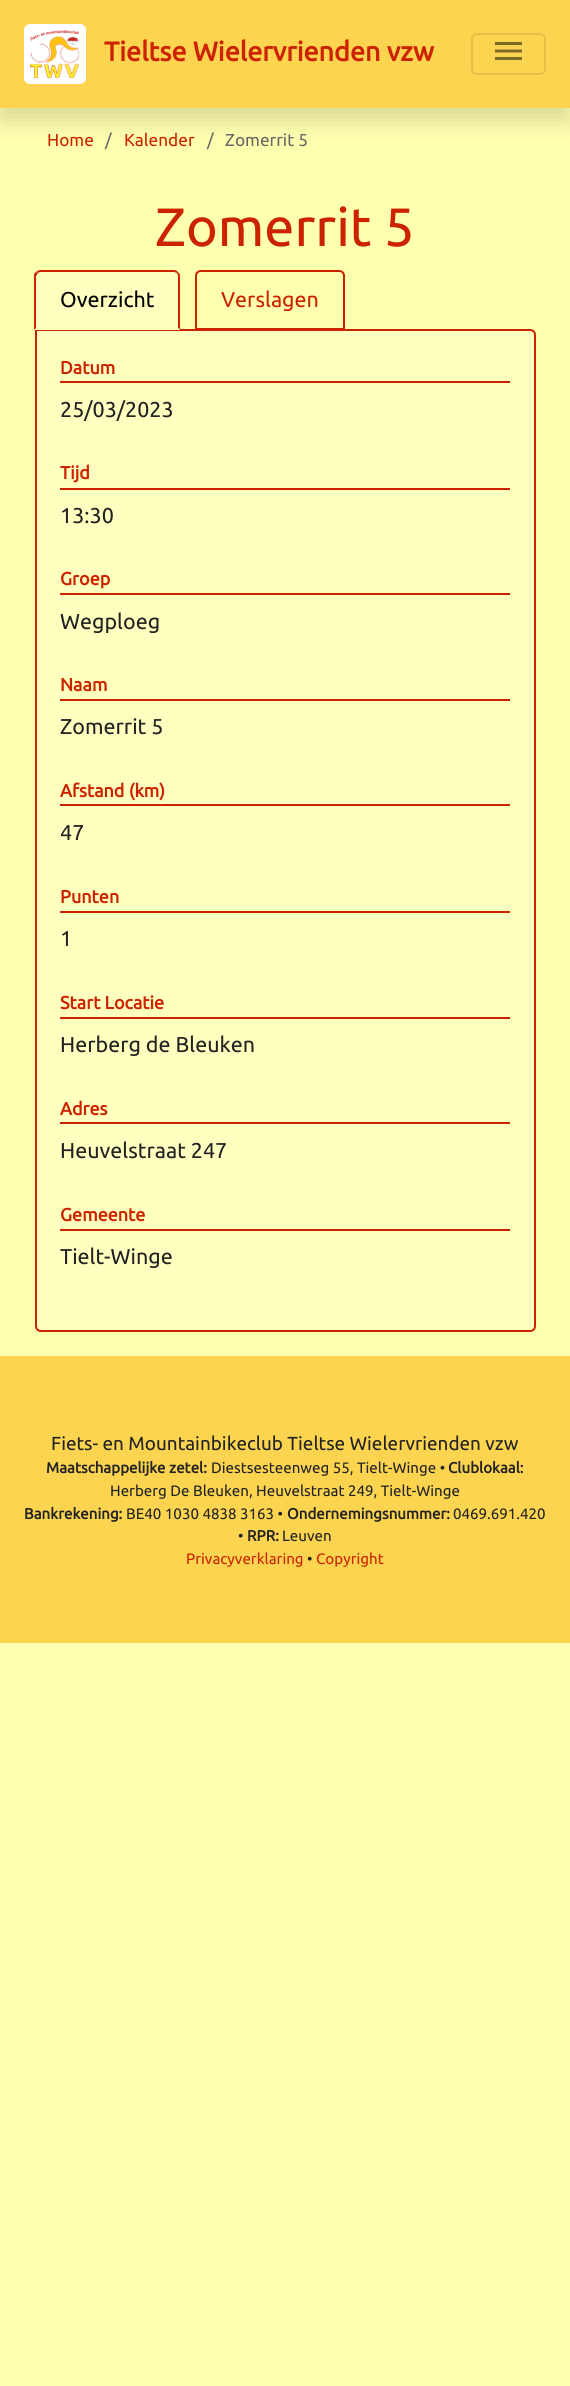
#include <cairo/cairo.h>
#include <math.h>
#include <stddef.h>

typedef struct { double x, y, w, h; unsigned color; } box_t;
static cairo_t *cr;

static void rgb(unsigned color)
{
	cairo_set_source_rgb(cr, (color >> 16) / 255.0, (color >> 8 & 255) / 255.0, (color & 255) / 255.0);
}

static void rrect(double x, double y, double w, double h, double r)
{
	cairo_new_sub_path(cr);
	cairo_arc(cr, x + w - r, y + h - r, r, 0, M_PI / 2);
	cairo_arc(cr, x + r, y + h - r, r, M_PI / 2, M_PI);
	cairo_arc(cr, x + r, y + r, r, M_PI, 1.5 * M_PI);
	cairo_arc(cr, x + w - r, y + r, r, 1.5 * M_PI, 2 * M_PI);
	cairo_close_path(cr);
}

static void soft_shadow(double x, double y, double w, double h, double r, double blur, double alpha)
{
	cairo_push_group_with_content(cr, CAIRO_CONTENT_ALPHA);
	cairo_set_operator(cr, CAIRO_OPERATOR_SOURCE);
	for (int i = 15; i >= -15 && fmin(w, h) + blur * i / 3 > 0; i -= 2) {
		double e = blur * i / 6;
		cairo_set_source_rgba(cr, 0, 0, 0, alpha * erfc((i - 1) / 8.5) / 2);
		rrect(x - e, y - e, w + 2 * e, h + 2 * e, fmax(0, fmin(r + e + blur * .6, fmin(w, h) / 2 + e)));
		cairo_fill(cr);
	}
	cairo_pattern_t *soft = cairo_pop_group(cr);
	cairo_mask(cr, soft);
	cairo_pattern_destroy(soft);
}

static void image(const char *path, double x, double y, double w, double h)
{
	cairo_surface_t *image = cairo_image_surface_create_from_png(path);
	cairo_save(cr);
	cairo_set_source_surface(cr, image, x, y);
	cairo_rectangle(cr, x, y, w, h);
	cairo_fill(cr);
	cairo_restore(cr);
	cairo_surface_destroy(image);
}

int main(void) {
	cairo_surface_t *surface = cairo_image_surface_create(CAIRO_FORMAT_RGB24, 570, 2386);
	cr = cairo_create(surface);
	cairo_font_options_t *options = cairo_font_options_create();
	cairo_font_options_set_hint_metrics(options, CAIRO_HINT_METRICS_OFF);
	cairo_font_options_set_hint_style(options, CAIRO_HINT_STYLE_NONE);
	cairo_set_font_options(cr, options);
	cairo_set_miter_limit(cr, 4);
	rgb(0xffffb0);
	cairo_paint(cr);
	rgb(0x000000);
	soft_shadow(0, 12, 570, 108, 0, 12, 0.15);
	rgb(0xfcd450);
	cairo_rectangle(cr, 0, 0, 570, 108);
	cairo_fill(cr);
	rgb(0xffffff);
	rrect(24, 24, 62, 60, 6);
	cairo_fill(cr);
	image("img/1.png", 30, 30, 50, 48);
	rrect(472, 34, 73, 40, 5);
	rgb(0xe3bf48);
	cairo_stroke(cr);
	image("img/2.png", 495, 42, 27, 18);
	rgb(0xffffbf);
	cairo_new_path(cr);
	cairo_move_to(cr, 36, 330);
	cairo_line_to(cr, 530, 330);
	cairo_curve_to(cr, 533, 330, 535, 332, 535, 335);
	cairo_line_to(cr, 535, 1326);
	cairo_curve_to(cr, 535, 1329, 533, 1331, 530, 1331);
	cairo_line_to(cr, 41, 1331);
	cairo_curve_to(cr, 38, 1331, 36, 1329, 36, 1326);
	cairo_close_path(cr);
	cairo_fill_preserve(cr);
	rgb(0xcc2200);
	cairo_stroke(cr);
	rgb(0xffffbf);
	cairo_new_path(cr);
	cairo_move_to(cr, 41, 270);
	cairo_line_to(cr, 174, 270);
	cairo_curve_to(cr, 177.5, 270, 180, 272.5, 180, 276);
	cairo_line_to(cr, 180, 330);
	cairo_line_to(cr, 35, 330);
	cairo_line_to(cr, 35, 276);
	cairo_curve_to(cr, 35, 272.5, 37.5, 270, 41, 270);
	cairo_close_path(cr);
	cairo_fill(cr);
	rgb(0xcc2200);
	cairo_new_path(cr);
	cairo_move_to(cr, 40, 270);
	cairo_curve_to(cr, 39, 270, 37, 271, 36, 272);
	cairo_line_to(cr, 38, 273);
	cairo_line_to(cr, 40, 272);
	cairo_line_to(cr, 174, 272);
	cairo_line_to(cr, 177, 273);
	cairo_line_to(cr, 178, 272);
	cairo_curve_to(cr, 177, 271, 176, 270, 174, 270);
	cairo_close_path(cr);
	cairo_fill(cr);
	cairo_new_path(cr);
	cairo_move_to(cr, 180, 330);
	cairo_line_to(cr, 180, 276);
	cairo_curve_to(cr, 180, 274, 179, 273, 178, 272);
	cairo_line_to(cr, 177, 273);
	cairo_line_to(cr, 178, 276);
	cairo_line_to(cr, 178, 328);
	cairo_close_path(cr);
	cairo_fill(cr);
	rgb(0xffffbf);
	cairo_new_path(cr);
	cairo_move_to(cr, 180, 330);
	cairo_line_to(cr, 178, 328);
	cairo_line_to(cr, 36, 328);
	cairo_line_to(cr, 34, 330);
	cairo_close_path(cr);
	cairo_fill(cr);
	rgb(0xcc2200);
	cairo_new_path(cr);
	cairo_move_to(cr, 34, 330);
	cairo_line_to(cr, 34, 274);
	cairo_line_to(cr, 36, 272);
	cairo_line_to(cr, 38, 273);
	cairo_line_to(cr, 36, 276);
	cairo_line_to(cr, 36, 328);
	cairo_close_path(cr);
	cairo_fill(cr);
	rgb(0xffffb0);
	cairo_new_path(cr);
	cairo_move_to(cr, 201, 271);
	cairo_line_to(cr, 339, 271);
	cairo_curve_to(cr, 342, 271, 344, 273, 344, 276);
	cairo_line_to(cr, 344, 329);
	cairo_line_to(cr, 196, 329);
	cairo_line_to(cr, 196, 276);
	cairo_curve_to(cr, 196, 273, 198, 271, 201, 271);
	cairo_close_path(cr);
	cairo_fill_preserve(cr);
	rgb(0xcc2200);
	cairo_stroke(cr);
	{
		static const box_t items[] = {
			{60, 381, 450, 2, 0xcc2200},
			{60, 488, 450, 2, 0xcc2200},
			{60, 593, 450, 2, 0xcc2200},
			{60, 699, 450, 2, 0xcc2200},
			{60, 804, 450, 2, 0xcc2200},
			{60, 911, 450, 2, 0xcc2200},
			{60, 1017, 450, 2, 0xcc2200},
			{60, 1122, 450, 2, 0xcc2200},
			{60, 1229, 450, 2, 0xcc2200},
			{0, 1356, 570, 287, 0xfcd450},
		};
		for (size_t i = 0; i < sizeof items / sizeof *items; i++) {
			rgb(items[i].color);
			cairo_rectangle(cr, items[i].x, items[i].y, items[i].w, items[i].h);
			cairo_fill(cr);
		}
	}
	cairo_select_font_face(cr, "Ubuntu", CAIRO_FONT_SLANT_NORMAL, CAIRO_FONT_WEIGHT_BOLD);
	cairo_set_font_size(cr, 27);
	rgb(0xcc2200);
	cairo_move_to(cr, 104, 61);
	cairo_show_text(cr, "Tieltse Wielervrienden vzw");
	cairo_select_font_face(cr, "Ubuntu", CAIRO_FONT_SLANT_NORMAL, CAIRO_FONT_WEIGHT_NORMAL);
	cairo_set_font_size(cr, 17.25);
	cairo_move_to(cr, 47, 146);
	cairo_show_text(cr, "Home");
	rgb(0x666666);
	cairo_move_to(cr, 105, 146);
	cairo_show_text(cr, "/");
	rgb(0xcc2200);
	cairo_move_to(cr, 124, 146);
	cairo_show_text(cr, "Kalender");
	rgb(0x666666);
	cairo_move_to(cr, 207, 146);
	cairo_show_text(cr, "/");
	cairo_move_to(cr, 225, 146);
	cairo_show_text(cr, "Zomerrit 5");
	cairo_set_font_size(cr, 54);
	rgb(0xcc2200);
	cairo_move_to(cr, 155, 246);
	cairo_show_text(cr, "Zomerrit 5");
	cairo_set_font_size(cr, 21.5);
	rgb(0x000000);
	cairo_move_to(cr, 60, 307);
	cairo_show_text(cr, "Overzicht");
	rgb(0xcc2200);
	cairo_move_to(cr, 221, 307);
	cairo_show_text(cr, "Verslagen");
	cairo_select_font_face(cr, "Ubuntu", CAIRO_FONT_SLANT_NORMAL, CAIRO_FONT_WEIGHT_BOLD);
	cairo_set_font_size(cr, 18);
	cairo_move_to(cr, 60, 374);
	cairo_show_text(cr, "Datum");
	cairo_select_font_face(cr, "Ubuntu", CAIRO_FONT_SLANT_NORMAL, CAIRO_FONT_WEIGHT_NORMAL);
	cairo_set_font_size(cr, 21.5);
	rgb(0x222222);
	cairo_move_to(cr, 60, 417);
	cairo_show_text(cr, "25/03/2023");
	cairo_select_font_face(cr, "Ubuntu", CAIRO_FONT_SLANT_NORMAL, CAIRO_FONT_WEIGHT_BOLD);
	cairo_set_font_size(cr, 18);
	rgb(0xcc2200);
	cairo_move_to(cr, 60, 479);
	cairo_show_text(cr, "Tijd");
	cairo_select_font_face(cr, "Ubuntu", CAIRO_FONT_SLANT_NORMAL, CAIRO_FONT_WEIGHT_NORMAL);
	cairo_set_font_size(cr, 21.5);
	rgb(0x222222);
	cairo_move_to(cr, 60, 523);
	cairo_show_text(cr, "13:30");
	cairo_select_font_face(cr, "Ubuntu", CAIRO_FONT_SLANT_NORMAL, CAIRO_FONT_WEIGHT_BOLD);
	cairo_set_font_size(cr, 18);
	rgb(0xcc2200);
	cairo_move_to(cr, 60, 585);
	cairo_show_text(cr, "Groep");
	cairo_select_font_face(cr, "Ubuntu", CAIRO_FONT_SLANT_NORMAL, CAIRO_FONT_WEIGHT_NORMAL);
	cairo_set_font_size(cr, 21.5);
	rgb(0x222222);
	cairo_move_to(cr, 60, 629);
	cairo_show_text(cr, "Wegploeg");
	cairo_select_font_face(cr, "Ubuntu", CAIRO_FONT_SLANT_NORMAL, CAIRO_FONT_WEIGHT_BOLD);
	cairo_set_font_size(cr, 18);
	rgb(0xcc2200);
	cairo_move_to(cr, 60, 691);
	cairo_show_text(cr, "Naam");
	cairo_select_font_face(cr, "Ubuntu", CAIRO_FONT_SLANT_NORMAL, CAIRO_FONT_WEIGHT_NORMAL);
	cairo_set_font_size(cr, 21.5);
	rgb(0x222222);
	cairo_move_to(cr, 60, 734);
	cairo_show_text(cr, "Zomerrit 5");
	cairo_select_font_face(cr, "Ubuntu", CAIRO_FONT_SLANT_NORMAL, CAIRO_FONT_WEIGHT_BOLD);
	cairo_set_font_size(cr, 18);
	rgb(0xcc2200);
	cairo_move_to(cr, 60, 797);
	cairo_show_text(cr, "Afstand (km)");
	cairo_select_font_face(cr, "Ubuntu", CAIRO_FONT_SLANT_NORMAL, CAIRO_FONT_WEIGHT_NORMAL);
	cairo_set_font_size(cr, 21.5);
	rgb(0x222222);
	cairo_move_to(cr, 60, 840);
	cairo_show_text(cr, "47");
	cairo_select_font_face(cr, "Ubuntu", CAIRO_FONT_SLANT_NORMAL, CAIRO_FONT_WEIGHT_BOLD);
	cairo_set_font_size(cr, 18);
	rgb(0xcc2200);
	cairo_move_to(cr, 60, 903);
	cairo_show_text(cr, "Punten");
	cairo_select_font_face(cr, "Ubuntu", CAIRO_FONT_SLANT_NORMAL, CAIRO_FONT_WEIGHT_NORMAL);
	cairo_set_font_size(cr, 21.5);
	rgb(0x222222);
	cairo_move_to(cr, 60, 946);
	cairo_show_text(cr, "1");
	cairo_select_font_face(cr, "Ubuntu", CAIRO_FONT_SLANT_NORMAL, CAIRO_FONT_WEIGHT_BOLD);
	cairo_set_font_size(cr, 18);
	rgb(0xcc2200);
	cairo_move_to(cr, 60, 1009);
	cairo_show_text(cr, "Start Locatie");
	cairo_select_font_face(cr, "Ubuntu", CAIRO_FONT_SLANT_NORMAL, CAIRO_FONT_WEIGHT_NORMAL);
	cairo_set_font_size(cr, 21.5);
	rgb(0x222222);
	cairo_move_to(cr, 60, 1052);
	cairo_show_text(cr, "Herberg de Bleuken");
	cairo_select_font_face(cr, "Ubuntu", CAIRO_FONT_SLANT_NORMAL, CAIRO_FONT_WEIGHT_BOLD);
	cairo_set_font_size(cr, 18);
	rgb(0xcc2200);
	cairo_move_to(cr, 60, 1115);
	cairo_show_text(cr, "Adres");
	cairo_select_font_face(cr, "Ubuntu", CAIRO_FONT_SLANT_NORMAL, CAIRO_FONT_WEIGHT_NORMAL);
	cairo_set_font_size(cr, 21.5);
	rgb(0x222222);
	cairo_move_to(cr, 60, 1158);
	cairo_show_text(cr, "Heuvelstraat 247");
	cairo_select_font_face(cr, "Ubuntu", CAIRO_FONT_SLANT_NORMAL, CAIRO_FONT_WEIGHT_BOLD);
	cairo_set_font_size(cr, 18);
	rgb(0xcc2200);
	cairo_move_to(cr, 60, 1221);
	cairo_show_text(cr, "Gemeente");
	cairo_select_font_face(cr, "Ubuntu", CAIRO_FONT_SLANT_NORMAL, CAIRO_FONT_WEIGHT_NORMAL);
	cairo_set_font_size(cr, 21.5);
	rgb(0x222222);
	cairo_move_to(cr, 60, 1264);
	cairo_show_text(cr, "Tielt-Winge");
	cairo_set_font_size(cr, 18.9);
	cairo_move_to(cr, 51, 1450);
	cairo_show_text(cr, "Fiets- en Mountainbikeclub Tieltse Wielervrienden vzw");
	cairo_select_font_face(cr, "Ubuntu", CAIRO_FONT_SLANT_NORMAL, CAIRO_FONT_WEIGHT_BOLD);
	cairo_set_font_size(cr, 15.1);
	cairo_move_to(cr, 46, 1473);
	cairo_show_text(cr, "Maatschappelijke zetel:");
	cairo_select_font_face(cr, "Ubuntu", CAIRO_FONT_SLANT_NORMAL, CAIRO_FONT_WEIGHT_NORMAL);
	cairo_move_to(cr, 211, 1473);
	cairo_show_text(cr, "Diestsesteenweg 55, Tielt-Winge •");
	cairo_select_font_face(cr, "Ubuntu", CAIRO_FONT_SLANT_NORMAL, CAIRO_FONT_WEIGHT_BOLD);
	cairo_move_to(cr, 448, 1473);
	cairo_show_text(cr, "Clublokaal:");
	cairo_select_font_face(cr, "Ubuntu", CAIRO_FONT_SLANT_NORMAL, CAIRO_FONT_WEIGHT_NORMAL);
	cairo_move_to(cr, 110, 1496);
	cairo_show_text(cr, "Herberg De Bleuken, Heuvelstraat 249, Tielt-Winge");
	cairo_select_font_face(cr, "Ubuntu", CAIRO_FONT_SLANT_NORMAL, CAIRO_FONT_WEIGHT_BOLD);
	cairo_move_to(cr, 24, 1519);
	cairo_show_text(cr, "Bankrekening:");
	cairo_select_font_face(cr, "Ubuntu", CAIRO_FONT_SLANT_NORMAL, CAIRO_FONT_WEIGHT_NORMAL);
	cairo_move_to(cr, 126, 1519);
	cairo_show_text(cr, "BE40 1030 4838 3163 •");
	cairo_select_font_face(cr, "Ubuntu", CAIRO_FONT_SLANT_NORMAL, CAIRO_FONT_WEIGHT_BOLD);
	cairo_move_to(cr, 287, 1519);
	cairo_show_text(cr, "Ondernemingsnummer:");
	cairo_select_font_face(cr, "Ubuntu", CAIRO_FONT_SLANT_NORMAL, CAIRO_FONT_WEIGHT_NORMAL);
	cairo_move_to(cr, 453, 1519);
	cairo_show_text(cr, "0469.691.420");
	cairo_move_to(cr, 238, 1541);
	cairo_show_text(cr, "•");
	cairo_select_font_face(cr, "Ubuntu", CAIRO_FONT_SLANT_NORMAL, CAIRO_FONT_WEIGHT_BOLD);
	cairo_move_to(cr, 247, 1541);
	cairo_show_text(cr, "RPR:");
	cairo_select_font_face(cr, "Ubuntu", CAIRO_FONT_SLANT_NORMAL, CAIRO_FONT_WEIGHT_NORMAL);
	cairo_move_to(cr, 282, 1541);
	cairo_show_text(cr, "Leuven");
	rgb(0xcc2200);
	cairo_move_to(cr, 186, 1564);
	cairo_show_text(cr, "Privacyverklaring");
	rgb(0x222222);
	cairo_move_to(cr, 307, 1564);
	cairo_show_text(cr, "•");
	rgb(0xcc2200);
	cairo_move_to(cr, 316, 1564);
	cairo_show_text(cr, "Copyright");
	cairo_surface_write_to_png(surface, "page.png");
	cairo_font_options_destroy(options);
	cairo_destroy(cr);
	cairo_surface_destroy(surface);
	return 0;
}
